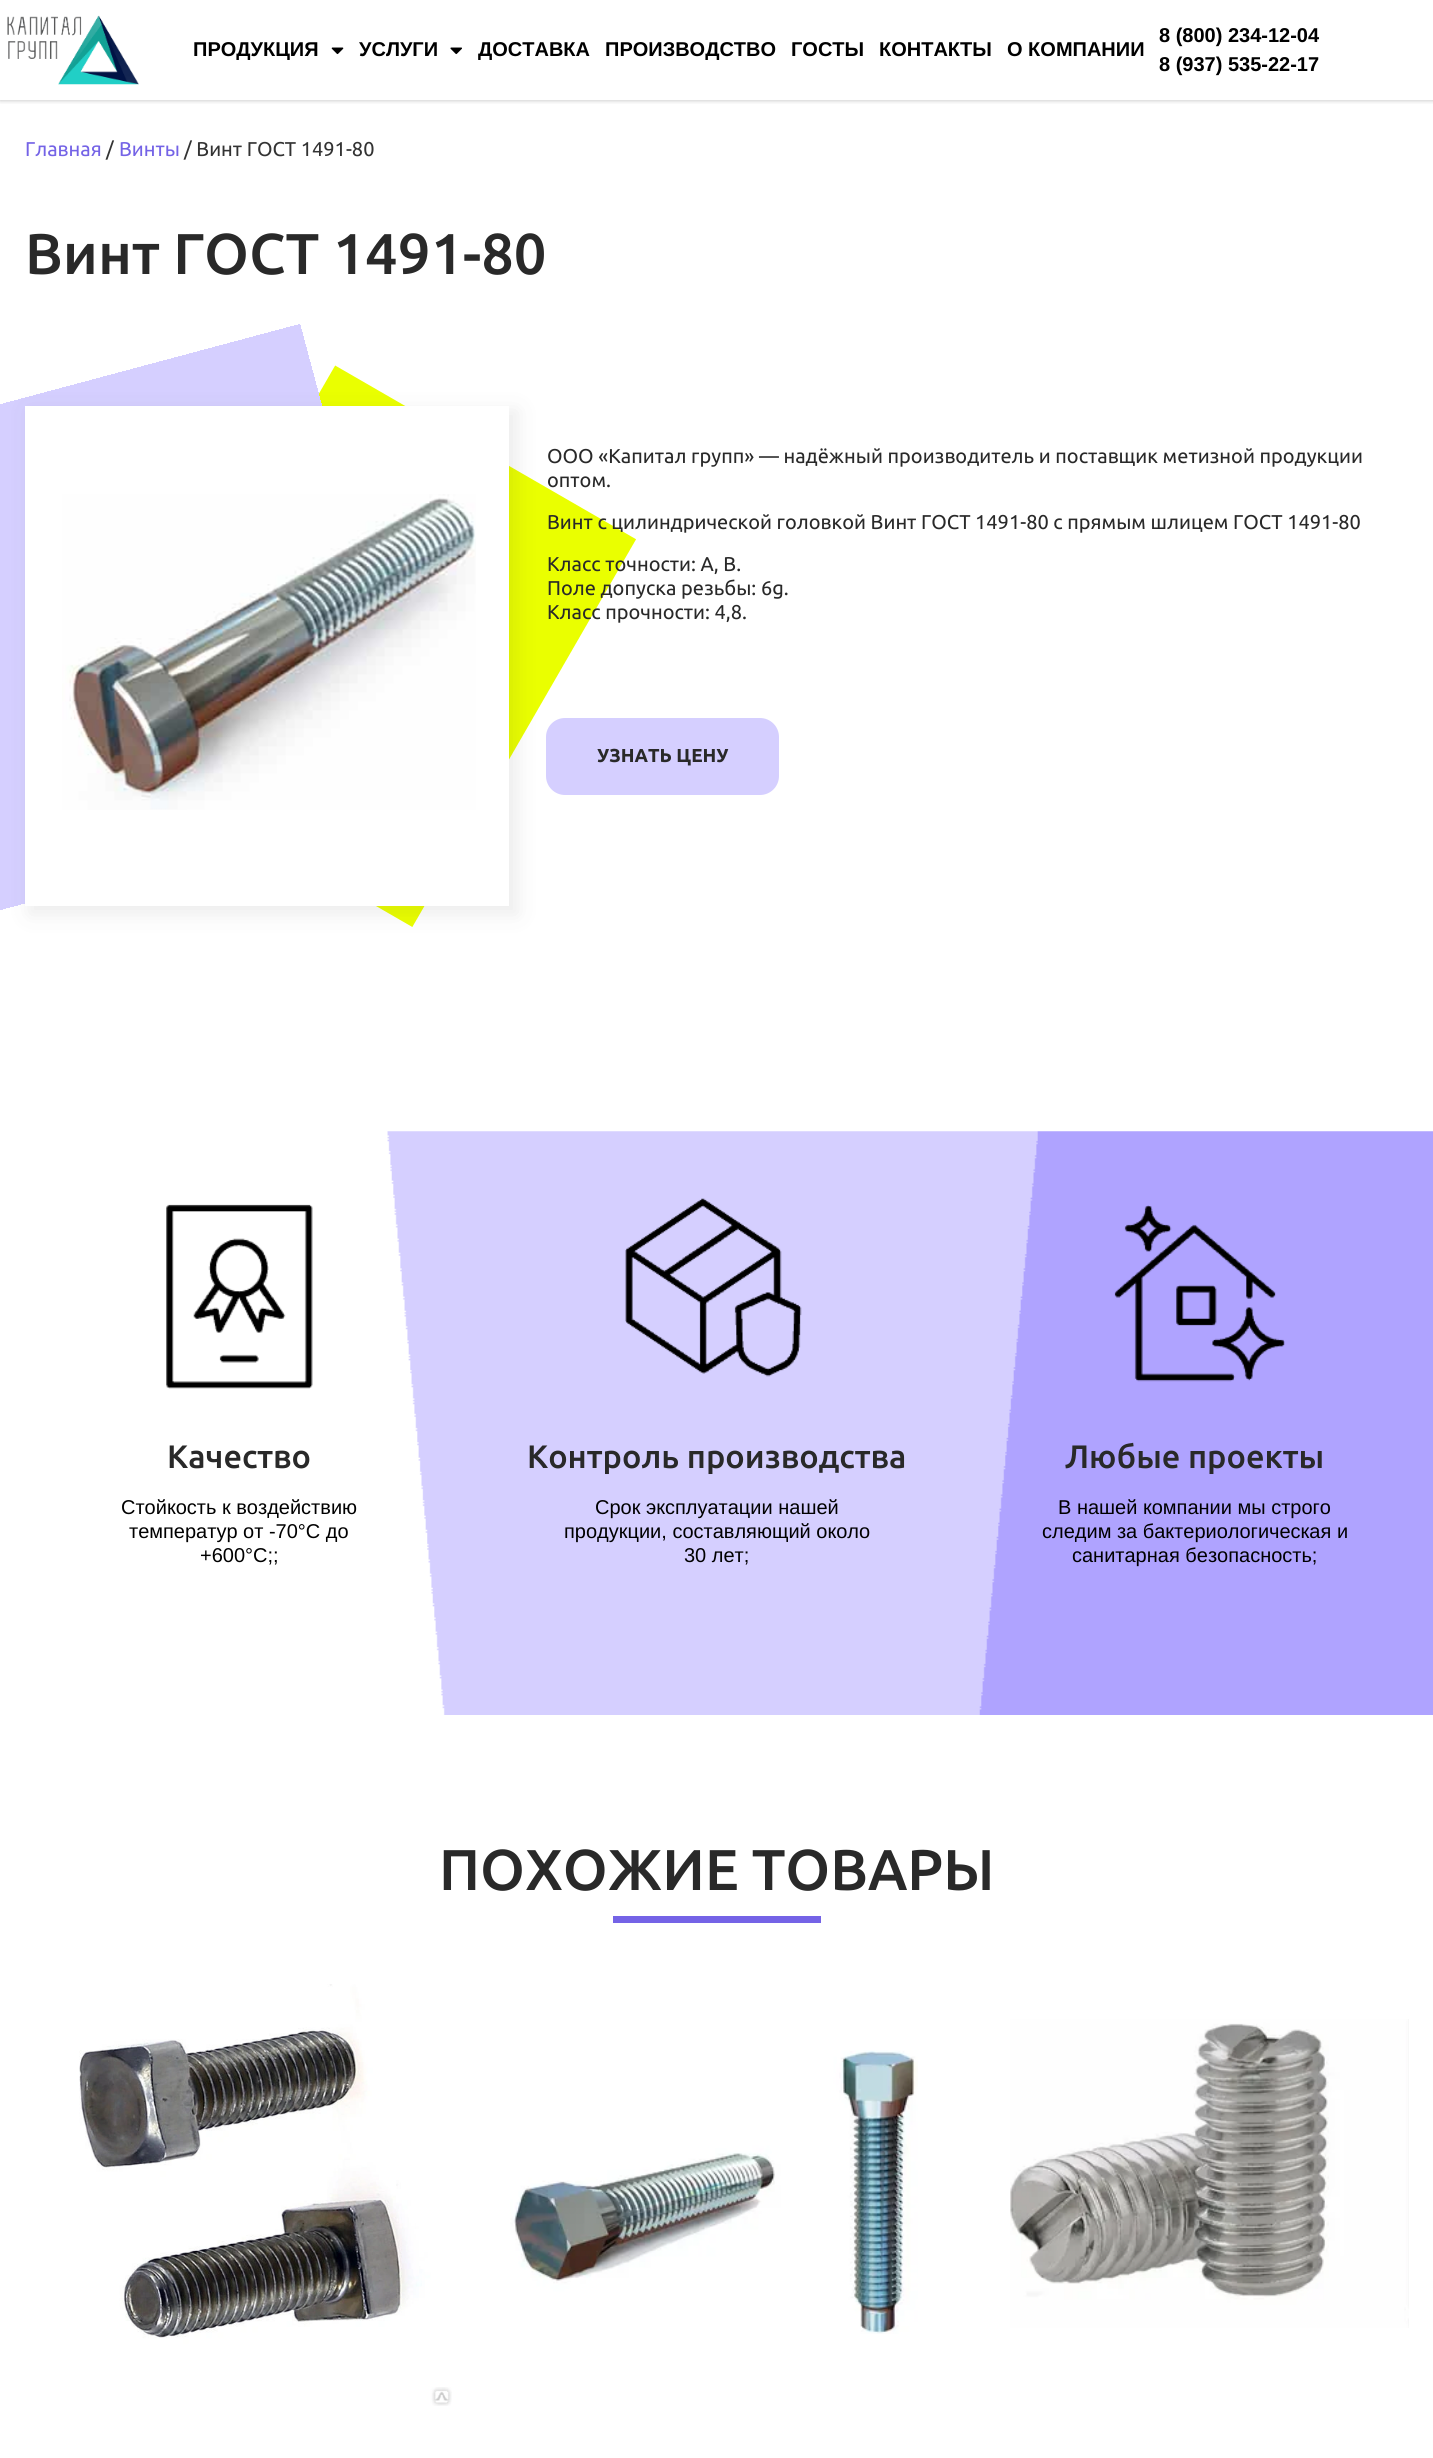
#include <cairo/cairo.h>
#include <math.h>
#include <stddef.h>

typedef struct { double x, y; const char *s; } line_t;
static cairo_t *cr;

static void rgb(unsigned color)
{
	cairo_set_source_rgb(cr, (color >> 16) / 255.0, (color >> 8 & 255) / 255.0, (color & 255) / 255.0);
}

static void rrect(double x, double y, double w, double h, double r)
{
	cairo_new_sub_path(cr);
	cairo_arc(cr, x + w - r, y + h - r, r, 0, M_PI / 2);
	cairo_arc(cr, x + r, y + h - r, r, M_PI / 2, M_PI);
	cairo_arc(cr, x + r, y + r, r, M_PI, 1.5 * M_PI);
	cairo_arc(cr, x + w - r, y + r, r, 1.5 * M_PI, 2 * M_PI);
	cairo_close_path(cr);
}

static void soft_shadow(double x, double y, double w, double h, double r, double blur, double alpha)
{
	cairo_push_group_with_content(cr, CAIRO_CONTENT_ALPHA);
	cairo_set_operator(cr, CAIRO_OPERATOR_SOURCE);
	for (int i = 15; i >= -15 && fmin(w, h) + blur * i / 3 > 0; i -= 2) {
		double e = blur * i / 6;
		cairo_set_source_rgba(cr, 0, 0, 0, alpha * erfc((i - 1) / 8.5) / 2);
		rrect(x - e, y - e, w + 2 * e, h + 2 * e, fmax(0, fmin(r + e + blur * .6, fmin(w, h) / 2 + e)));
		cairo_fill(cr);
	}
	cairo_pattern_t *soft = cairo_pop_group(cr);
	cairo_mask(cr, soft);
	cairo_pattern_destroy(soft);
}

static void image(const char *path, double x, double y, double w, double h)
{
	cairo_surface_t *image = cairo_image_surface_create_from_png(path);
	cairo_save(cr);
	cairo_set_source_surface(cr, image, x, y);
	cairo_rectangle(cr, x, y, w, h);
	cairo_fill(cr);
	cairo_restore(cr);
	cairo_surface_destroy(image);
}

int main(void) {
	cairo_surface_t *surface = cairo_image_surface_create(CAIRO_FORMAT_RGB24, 1433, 2458);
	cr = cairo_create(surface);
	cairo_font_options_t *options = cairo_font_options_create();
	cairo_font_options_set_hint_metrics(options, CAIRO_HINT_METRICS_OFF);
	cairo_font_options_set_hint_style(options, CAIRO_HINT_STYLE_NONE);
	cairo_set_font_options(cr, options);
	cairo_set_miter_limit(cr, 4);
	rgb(0xffffff);
	cairo_paint(cr);
	cairo_save(cr);
	cairo_rectangle(cr, 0, 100, 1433, 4);
	cairo_clip(cr);
	rgb(0x000000);
	soft_shadow(0, 1, 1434, 100, 0, 2, 0.2);
	cairo_restore(cr);
	image("img/1.png", 7, 15, 132, 70);
	image("img/2.png", 331, 47, 13, 8);
	image("img/3.png", 450, 47, 12, 8);
	image("img/6.png", 319, 365, 317, 562);
	image("img/5.png", 0, 324, 322, 586);
	rgb(0x333333);
	soft_shadow(29, 410, 489, 505, 0, 10, 0.09);
	rgb(0xffffff);
	cairo_rectangle(cr, 25, 406, 484, 500);
	cairo_fill(cr);
	image("img/4.png", 62, 494, 414, 316);
	rgb(0xd5cfff);
	rrect(546, 718, 233, 77, 19);
	cairo_fill(cr);
	image("img/7.png", 387, 1131, 1046, 584);
	image("img/8.png", 166, 1204, 147, 185);
	image("img/9.png", 625, 1198, 177, 179);
	image("img/10.png", 1114, 1205, 171, 177);
	rgb(0x7463e6);
	cairo_rectangle(cr, 613, 1916, 208, 7);
	cairo_fill(cr);
	image("img/11.png", 79, 1984, 373, 422);
	image("img/12.png", 510, 2050, 408, 284);
	image("img/13.png", 1010, 2019, 399, 309);
	cairo_select_font_face(cr, "Liberation Sans", CAIRO_FONT_SLANT_NORMAL, CAIRO_FONT_WEIGHT_BOLD);
	cairo_set_font_size(cr, 20);
	rgb(0x000000);
	{
		static const line_t items[] = {
			{193, 56, "ПРОДУКЦИЯ"},
			{359, 56, "УСЛУГИ"},
			{478, 56, "ДОСТАВКА"},
			{605, 56, "ПРОИЗВОДСТВО"},
			{791, 56, "ГОСТЫ"},
			{879, 56, "КОНТАКТЫ"},
			{1007, 56, "О КОМПАНИИ"},
			{1159, 42, "8 (800) 234-12-04"},
			{1159, 71, "8 (937) 535-22-17"},
		};
		for (size_t i = 0; i < sizeof items / sizeof *items; i++) {
			cairo_move_to(cr, items[i].x, items[i].y);
			cairo_show_text(cr, items[i].s);
		}
	}
	cairo_select_font_face(cr, "Ubuntu", CAIRO_FONT_SLANT_NORMAL, CAIRO_FONT_WEIGHT_NORMAL);
	rgb(0x7463e6);
	cairo_move_to(cr, 25, 156);
	cairo_show_text(cr, "Главная");
	rgb(0x333333);
	cairo_move_to(cr, 106, 156);
	cairo_show_text(cr, "/");
	rgb(0x7463e6);
	cairo_move_to(cr, 119, 156);
	cairo_show_text(cr, "Винты");
	rgb(0x333333);
	cairo_move_to(cr, 184, 156);
	cairo_show_text(cr, "/ Винт ГОСТ 1491-80");
	cairo_select_font_face(cr, "Ubuntu Medium", CAIRO_FONT_SLANT_NORMAL, CAIRO_FONT_WEIGHT_NORMAL);
	cairo_set_font_size(cr, 57.5);
	rgb(0x292929);
	cairo_move_to(cr, 25, 274);
	cairo_show_text(cr, "Винт ГОСТ 1491-80");
	cairo_select_font_face(cr, "Ubuntu", CAIRO_FONT_SLANT_NORMAL, CAIRO_FONT_WEIGHT_NORMAL);
	cairo_set_font_size(cr, 20);
	{
		static const line_t items[] = {
			{547, 463, "ООО «Капитал групп» — надёжный производитель и поставщик метизной продукции"},
			{547, 487, "оптом."},
			{547, 529, "Винт с цилиндрической головкой Винт ГОСТ 1491-80 с прямым шлицем ГОСТ 1491-80"},
			{547, 571, "Класс точности: A, B."},
			{547, 595, "Поле допуска резьбы: 6g."},
			{547, 619, "Класс прочности: 4,8."},
		};
		for (size_t i = 0; i < sizeof items / sizeof *items; i++) {
			cairo_move_to(cr, items[i].x, items[i].y);
			cairo_show_text(cr, items[i].s);
		}
	}
	cairo_select_font_face(cr, "Ubuntu", CAIRO_FONT_SLANT_NORMAL, CAIRO_FONT_WEIGHT_BOLD);
	cairo_set_font_size(cr, 18.75);
	cairo_move_to(cr, 597, 762);
	cairo_show_text(cr, "УЗНАТЬ ЦЕНУ");
	cairo_select_font_face(cr, "Ubuntu Medium", CAIRO_FONT_SLANT_NORMAL, CAIRO_FONT_WEIGHT_NORMAL);
	cairo_set_font_size(cr, 32.5);
	cairo_move_to(cr, 167, 1468);
	cairo_show_text(cr, "Качество");
	cairo_select_font_face(cr, "Liberation Sans", CAIRO_FONT_SLANT_NORMAL, CAIRO_FONT_WEIGHT_NORMAL);
	cairo_set_font_size(cr, 20);
	rgb(0x000000);
	{
		static const line_t items[] = {
			{121, 1514, "Стойкость к воздействию"},
			{129, 1538, "температур от -70°С до"},
			{200, 1562, "+600°С;;"},
		};
		for (size_t i = 0; i < sizeof items / sizeof *items; i++) {
			cairo_move_to(cr, items[i].x, items[i].y);
			cairo_show_text(cr, items[i].s);
		}
	}
	cairo_select_font_face(cr, "Ubuntu Medium", CAIRO_FONT_SLANT_NORMAL, CAIRO_FONT_WEIGHT_NORMAL);
	cairo_set_font_size(cr, 32.5);
	rgb(0x292929);
	cairo_move_to(cr, 527, 1468);
	cairo_show_text(cr, "Контроль производства");
	cairo_select_font_face(cr, "Liberation Sans", CAIRO_FONT_SLANT_NORMAL, CAIRO_FONT_WEIGHT_NORMAL);
	cairo_set_font_size(cr, 20);
	rgb(0x000000);
	{
		static const line_t items[] = {
			{595, 1514, "Срок эксплуатации нашей"},
			{564, 1538, "продукции, составляющий около"},
			{684, 1562, "30 лет;"},
		};
		for (size_t i = 0; i < sizeof items / sizeof *items; i++) {
			cairo_move_to(cr, items[i].x, items[i].y);
			cairo_show_text(cr, items[i].s);
		}
	}
	cairo_select_font_face(cr, "Ubuntu Medium", CAIRO_FONT_SLANT_NORMAL, CAIRO_FONT_WEIGHT_NORMAL);
	cairo_set_font_size(cr, 32.5);
	rgb(0x292929);
	cairo_move_to(cr, 1065, 1468);
	cairo_show_text(cr, "Любые проекты");
	cairo_select_font_face(cr, "Liberation Sans", CAIRO_FONT_SLANT_NORMAL, CAIRO_FONT_WEIGHT_NORMAL);
	cairo_set_font_size(cr, 20);
	rgb(0x000000);
	{
		static const line_t items[] = {
			{1058, 1514, "В нашей компании мы строго"},
			{1042, 1538, "следим за бактериологическая и"},
			{1072, 1562, "санитарная безопасность;"},
		};
		for (size_t i = 0; i < sizeof items / sizeof *items; i++) {
			cairo_move_to(cr, items[i].x, items[i].y);
			cairo_show_text(cr, items[i].s);
		}
	}
	cairo_select_font_face(cr, "Ubuntu Medium", CAIRO_FONT_SLANT_NORMAL, CAIRO_FONT_WEIGHT_NORMAL);
	cairo_set_font_size(cr, 57.5);
	rgb(0x292929);
	cairo_move_to(cr, 439, 1890);
	cairo_show_text(cr, "ПОХОЖИЕ ТОВАРЫ");
	cairo_surface_write_to_png(surface, "page.png");
	cairo_font_options_destroy(options);
	cairo_destroy(cr);
	cairo_surface_destroy(surface);
	return 0;
}
